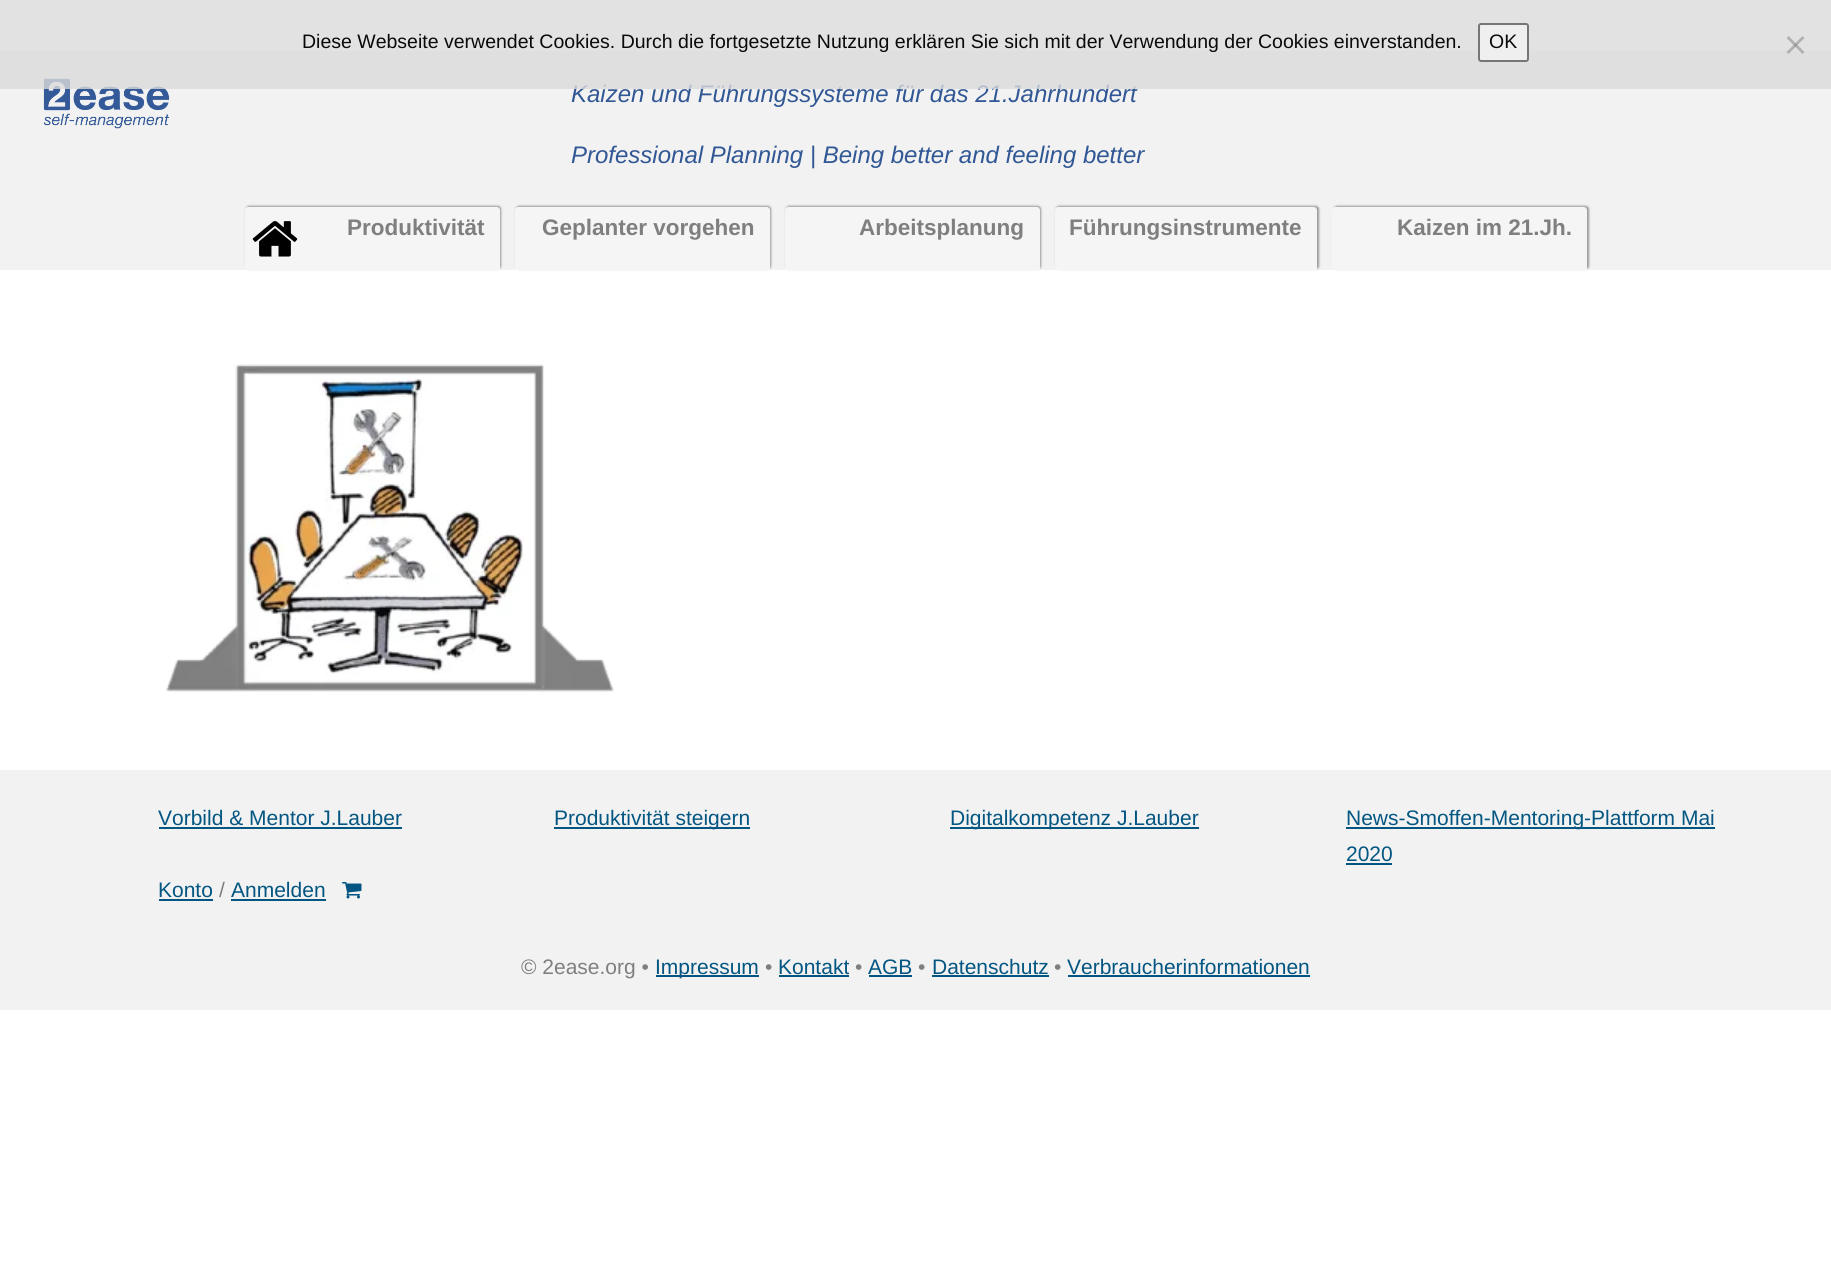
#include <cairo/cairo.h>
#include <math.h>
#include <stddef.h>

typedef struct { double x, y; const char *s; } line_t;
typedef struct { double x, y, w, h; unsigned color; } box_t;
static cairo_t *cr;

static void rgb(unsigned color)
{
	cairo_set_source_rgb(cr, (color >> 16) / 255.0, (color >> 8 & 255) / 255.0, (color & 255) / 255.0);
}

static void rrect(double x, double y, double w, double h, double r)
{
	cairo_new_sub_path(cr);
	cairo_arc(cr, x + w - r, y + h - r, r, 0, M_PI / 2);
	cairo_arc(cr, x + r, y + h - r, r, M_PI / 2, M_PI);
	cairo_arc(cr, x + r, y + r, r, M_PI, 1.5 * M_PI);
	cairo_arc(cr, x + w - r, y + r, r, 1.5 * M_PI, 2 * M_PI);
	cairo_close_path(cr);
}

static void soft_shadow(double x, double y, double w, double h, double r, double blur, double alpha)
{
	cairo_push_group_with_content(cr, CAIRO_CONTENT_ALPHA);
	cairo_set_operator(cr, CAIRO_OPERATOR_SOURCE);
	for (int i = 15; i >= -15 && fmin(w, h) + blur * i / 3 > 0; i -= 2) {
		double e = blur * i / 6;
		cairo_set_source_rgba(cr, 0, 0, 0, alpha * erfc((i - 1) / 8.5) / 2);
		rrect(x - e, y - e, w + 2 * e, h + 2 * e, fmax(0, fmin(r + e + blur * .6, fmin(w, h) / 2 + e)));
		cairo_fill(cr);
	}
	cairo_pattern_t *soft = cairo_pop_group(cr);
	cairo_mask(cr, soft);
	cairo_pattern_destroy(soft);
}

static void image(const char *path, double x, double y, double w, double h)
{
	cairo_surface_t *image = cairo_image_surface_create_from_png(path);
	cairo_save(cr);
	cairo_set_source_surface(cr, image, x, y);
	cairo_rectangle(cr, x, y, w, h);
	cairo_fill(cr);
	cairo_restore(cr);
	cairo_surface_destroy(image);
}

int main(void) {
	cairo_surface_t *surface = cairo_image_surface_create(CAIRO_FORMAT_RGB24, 1831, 1278);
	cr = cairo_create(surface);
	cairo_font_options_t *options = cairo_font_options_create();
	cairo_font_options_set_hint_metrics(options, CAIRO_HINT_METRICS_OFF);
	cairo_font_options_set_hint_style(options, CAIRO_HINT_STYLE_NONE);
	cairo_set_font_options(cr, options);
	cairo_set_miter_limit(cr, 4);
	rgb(0xffffff);
	cairo_paint(cr);
	rgb(0xf2f2f2);
	cairo_rectangle(cr, 0, 51, 1831, 219);
	cairo_fill(cr);
	image("img/1.png", 43, 78, 127, 51);
	rgb(0x999999);
	soft_shadow(246, 206, 255, 63, 3, 1, 1);
	rgb(0xf5f5f5);
	cairo_new_path(cr);
	cairo_move_to(cr, 248, 207);
	cairo_line_to(cr, 497, 207);
	cairo_curve_to(cr, 498.5, 207, 500, 208.5, 500, 210);
	cairo_line_to(cr, 500, 270);
	cairo_line_to(cr, 245, 270);
	cairo_line_to(cr, 245, 210);
	cairo_curve_to(cr, 245, 208.5, 246.5, 207, 248, 207);
	cairo_close_path(cr);
	cairo_fill(cr);
	image("img/2.png", 252, 221, 46, 36);
	rgb(0x999999);
	soft_shadow(516, 206, 255, 63, 3, 1, 1);
	rgb(0xf5f5f5);
	cairo_new_path(cr);
	cairo_move_to(cr, 518, 207);
	cairo_line_to(cr, 767, 207);
	cairo_curve_to(cr, 768.5, 207, 770, 208.5, 770, 210);
	cairo_line_to(cr, 770, 270);
	cairo_line_to(cr, 515, 270);
	cairo_line_to(cr, 515, 210);
	cairo_curve_to(cr, 515, 208.5, 516.5, 207, 518, 207);
	cairo_close_path(cr);
	cairo_fill(cr);
	rgb(0x999999);
	soft_shadow(786, 206, 255, 63, 3, 1, 1);
	rgb(0xf5f5f5);
	cairo_new_path(cr);
	cairo_move_to(cr, 788, 207);
	cairo_line_to(cr, 1037, 207);
	cairo_curve_to(cr, 1038.5, 207, 1040, 208.5, 1040, 210);
	cairo_line_to(cr, 1040, 270);
	cairo_line_to(cr, 785, 270);
	cairo_line_to(cr, 785, 210);
	cairo_curve_to(cr, 785, 208.5, 786.5, 207, 788, 207);
	cairo_close_path(cr);
	cairo_fill(cr);
	rgb(0x999999);
	soft_shadow(1056, 206, 263, 63, 3, 1, 1);
	rgb(0xf5f5f5);
	cairo_new_path(cr);
	cairo_move_to(cr, 1058, 207);
	cairo_line_to(cr, 1314, 207);
	cairo_curve_to(cr, 1315.5, 207, 1317, 208.5, 1317, 210);
	cairo_line_to(cr, 1317, 270);
	cairo_line_to(cr, 1055, 270);
	cairo_line_to(cr, 1055, 210);
	cairo_curve_to(cr, 1055, 208.5, 1056.5, 207, 1058, 207);
	cairo_close_path(cr);
	cairo_fill(cr);
	rgb(0x999999);
	soft_shadow(1334, 206, 255, 63, 3, 1, 1);
	rgb(0xf5f5f5);
	cairo_new_path(cr);
	cairo_move_to(cr, 1335, 207);
	cairo_line_to(cr, 1584, 207);
	cairo_curve_to(cr, 1585.5, 207, 1587, 208.5, 1587, 210);
	cairo_line_to(cr, 1587, 270);
	cairo_line_to(cr, 1332, 270);
	cairo_line_to(cr, 1332, 210);
	cairo_curve_to(cr, 1332, 208.5, 1333.5, 207, 1335, 207);
	cairo_close_path(cr);
	cairo_fill(cr);
	image("img/3.png", 166, 364, 448, 328);
	{
		static const box_t items[] = {
			{0, 770, 1831, 240, 0xf2f2f2},
			{159, 827, 243, 2, 0x035682},
			{554, 827, 196, 2, 0x035682},
			{950, 827, 249, 2, 0x035682},
			{1346, 827, 369, 2, 0x035682},
			{1346, 863, 46, 2, 0x035682},
			{159, 899, 54, 2, 0x035682},
			{231, 899, 95, 2, 0x035682},
		};
		for (size_t i = 0; i < sizeof items / sizeof *items; i++) {
			rgb(items[i].color);
			cairo_rectangle(cr, items[i].x, items[i].y, items[i].w, items[i].h);
			cairo_fill(cr);
		}
	}
	image("img/4.png", 342, 882, 20, 17);
	{
		static const box_t items[] = {
			{656, 975, 103, 2, 0x035682},
			{779, 975, 70, 2, 0x035682},
			{869, 975, 43, 2, 0x035682},
			{932, 975, 117, 2, 0x035682},
			{1068, 975, 242, 2, 0x035682},
		};
		for (size_t i = 0; i < sizeof items / sizeof *items; i++) {
			rgb(items[i].color);
			cairo_rectangle(cr, items[i].x, items[i].y, items[i].w, items[i].h);
			cairo_fill(cr);
		}
	}
	cairo_select_font_face(cr, "Liberation Sans", CAIRO_FONT_SLANT_ITALIC, CAIRO_FONT_WEIGHT_NORMAL);
	cairo_set_font_size(cr, 24);
	rgb(0x315795);
	cairo_move_to(cr, 571, 102);
	cairo_show_text(cr, "Kaizen und Führungssysteme für das 21.Jahrhundert");
	cairo_set_source_rgba(cr, 0.859, 0.859, 0.859, 0.8);
	cairo_rectangle(cr, 0, 0, 1831, 89);
	cairo_fill(cr);
	cairo_set_source_rgba(cr, 0.502, 0.502, 0.502, 0.5);
	cairo_new_path(cr);
	cairo_move_to(cr, 1802.5, 36);
	cairo_line_to(cr, 1804.5, 38);
	cairo_line_to(cr, 1788.5, 54);
	cairo_line_to(cr, 1786.5, 52);
	cairo_close_path(cr);
	cairo_fill(cr);
	cairo_new_path(cr);
	cairo_move_to(cr, 1786.5, 38);
	cairo_line_to(cr, 1788.5, 36);
	cairo_line_to(cr, 1804.5, 52);
	cairo_line_to(cr, 1802.5, 54);
	cairo_close_path(cr);
	cairo_fill(cr);
	rgb(0xefefef);
	rrect(1479, 24, 49, 37, 2);
	cairo_fill_preserve(cr);
	rgb(0x767676);
	cairo_stroke(cr);
	cairo_select_font_face(cr, "Liberation Sans", CAIRO_FONT_SLANT_NORMAL, CAIRO_FONT_WEIGHT_NORMAL);
	cairo_set_font_size(cr, 19.5);
	rgb(0x0a0a0a);
	cairo_move_to(cr, 1489, 48);
	cairo_show_text(cr, "OK");
	cairo_move_to(cr, 302, 48);
	cairo_show_text(cr, "Diese Webseite verwendet Cookies. Durch die fortgesetzte Nutzung erklären Sie sich mit der Verwendung der Cookies einverstanden.");
	cairo_select_font_face(cr, "Liberation Sans", CAIRO_FONT_SLANT_ITALIC, CAIRO_FONT_WEIGHT_NORMAL);
	cairo_set_font_size(cr, 24);
	rgb(0x315795);
	cairo_move_to(cr, 571, 163);
	cairo_show_text(cr, "Professional Planning | Being better and feeling better");
	cairo_select_font_face(cr, "Liberation Sans", CAIRO_FONT_SLANT_NORMAL, CAIRO_FONT_WEIGHT_BOLD);
	cairo_set_font_size(cr, 22.5);
	rgb(0x7f7f7f);
	{
		static const line_t items[] = {
			{347, 235, "Produktivität"},
			{542, 235, "Geplanter vorgehen"},
			{859, 235, "Arbeitsplanung"},
			{1069, 235, "Führungsinstrumente"},
			{1397, 235, "Kaizen im 21.Jh."},
		};
		for (size_t i = 0; i < sizeof items / sizeof *items; i++) {
			cairo_move_to(cr, items[i].x, items[i].y);
			cairo_show_text(cr, items[i].s);
		}
	}
	cairo_select_font_face(cr, "Liberation Sans", CAIRO_FONT_SLANT_NORMAL, CAIRO_FONT_WEIGHT_NORMAL);
	cairo_set_font_size(cr, 21);
	rgb(0x035682);
	{
		static const line_t items[] = {
			{158, 825, "Vorbild & Mentor J.Lauber"},
			{554, 825, "Produktivität steigern"},
			{950, 825, "Digitalkompetenz J.Lauber"},
			{1346, 825, "News-Smoffen-Mentoring-Plattform Mai"},
			{1346, 861, "2020"},
			{158, 897, "Konto"},
		};
		for (size_t i = 0; i < sizeof items / sizeof *items; i++) {
			cairo_move_to(cr, items[i].x, items[i].y);
			cairo_show_text(cr, items[i].s);
		}
	}
	rgb(0x7f7f7f);
	cairo_move_to(cr, 219, 897);
	cairo_show_text(cr, "/");
	rgb(0x035682);
	cairo_move_to(cr, 231, 897);
	cairo_show_text(cr, "Anmelden");
	rgb(0x7f7f7f);
	cairo_move_to(cr, 521, 974);
	cairo_show_text(cr, "© 2ease.org •");
	rgb(0x035682);
	cairo_move_to(cr, 655, 974);
	cairo_show_text(cr, "Impressum");
	rgb(0x7f7f7f);
	cairo_move_to(cr, 765, 974);
	cairo_show_text(cr, "•");
	rgb(0x035682);
	cairo_move_to(cr, 778, 974);
	cairo_show_text(cr, "Kontakt");
	rgb(0x7f7f7f);
	cairo_move_to(cr, 855, 974);
	cairo_show_text(cr, "•");
	rgb(0x035682);
	cairo_move_to(cr, 868, 974);
	cairo_show_text(cr, "AGB");
	rgb(0x7f7f7f);
	cairo_move_to(cr, 918, 974);
	cairo_show_text(cr, "•");
	rgb(0x035682);
	cairo_move_to(cr, 932, 974);
	cairo_show_text(cr, "Datenschutz");
	rgb(0x7f7f7f);
	cairo_move_to(cr, 1054, 974);
	cairo_show_text(cr, "•");
	rgb(0x035682);
	cairo_move_to(cr, 1067, 974);
	cairo_show_text(cr, "Verbraucherinformationen");
	cairo_surface_write_to_png(surface, "page.png");
	cairo_font_options_destroy(options);
	cairo_destroy(cr);
	cairo_surface_destroy(surface);
	return 0;
}
